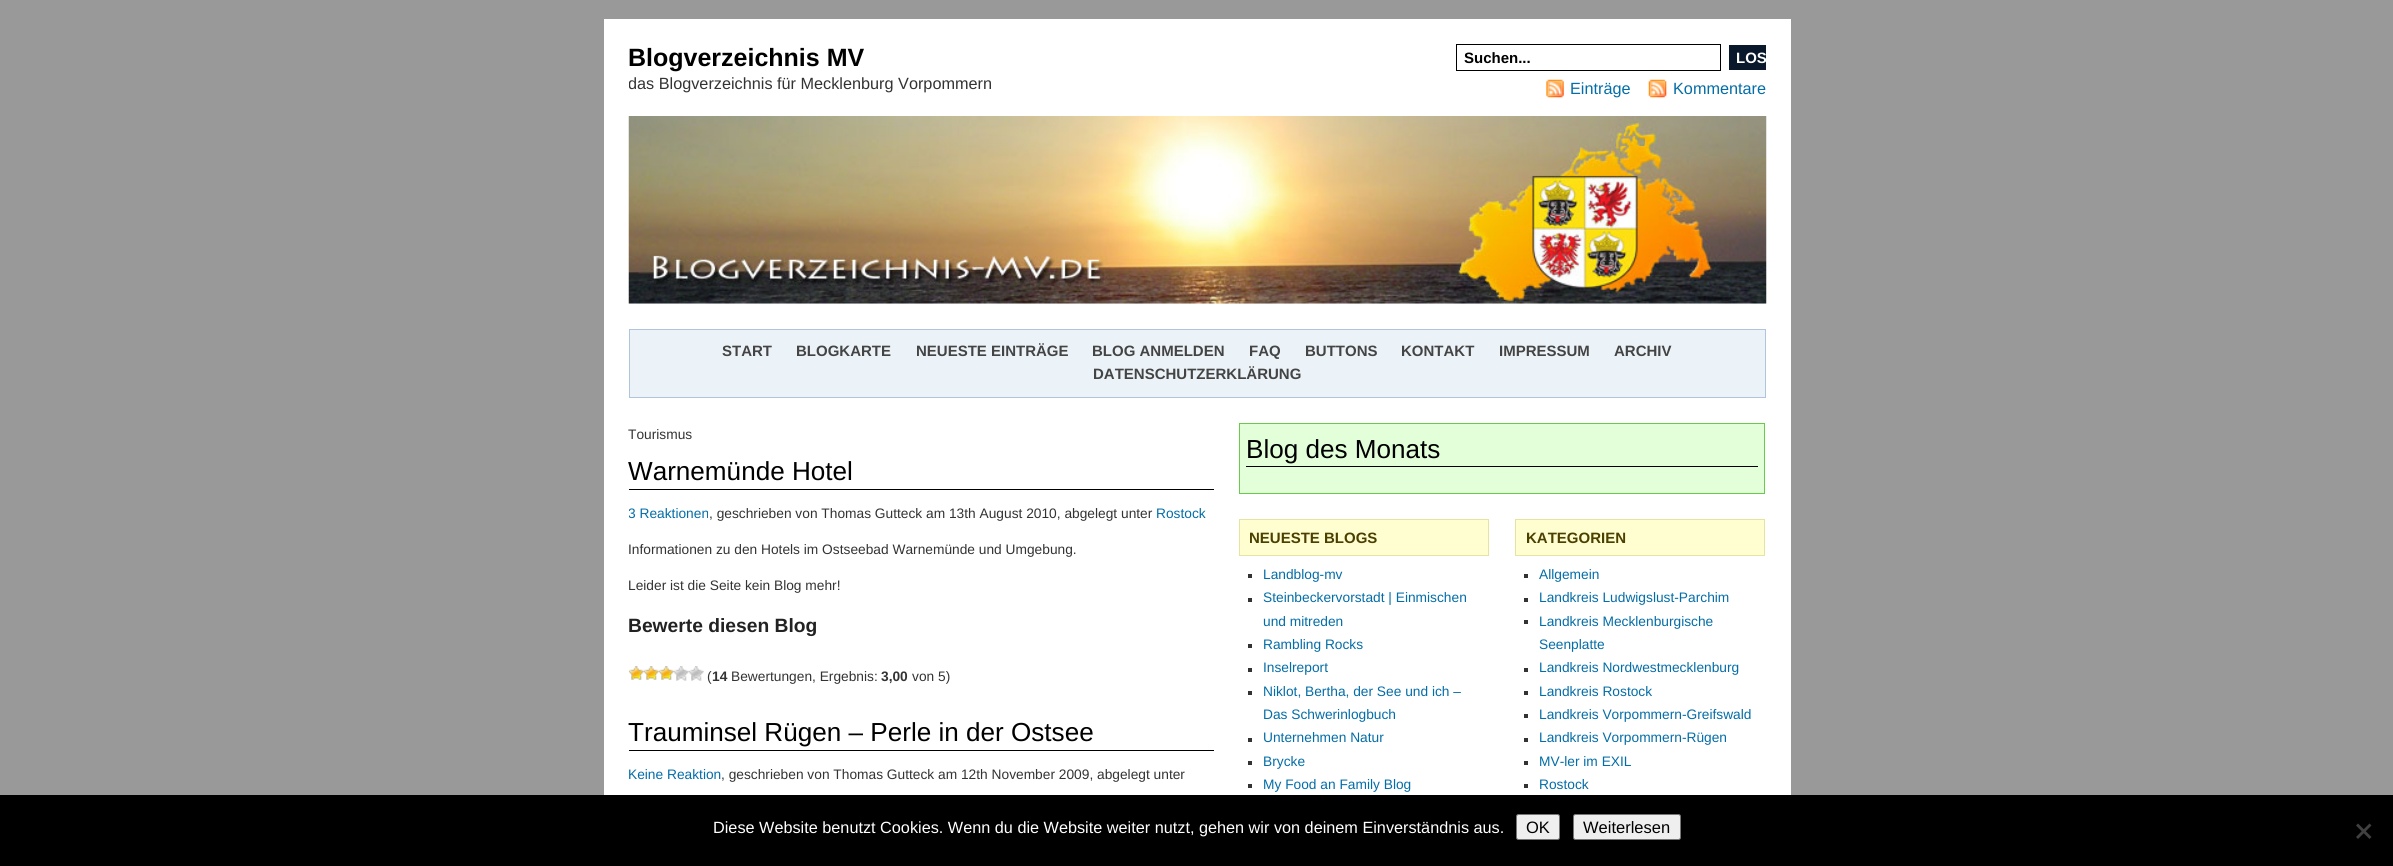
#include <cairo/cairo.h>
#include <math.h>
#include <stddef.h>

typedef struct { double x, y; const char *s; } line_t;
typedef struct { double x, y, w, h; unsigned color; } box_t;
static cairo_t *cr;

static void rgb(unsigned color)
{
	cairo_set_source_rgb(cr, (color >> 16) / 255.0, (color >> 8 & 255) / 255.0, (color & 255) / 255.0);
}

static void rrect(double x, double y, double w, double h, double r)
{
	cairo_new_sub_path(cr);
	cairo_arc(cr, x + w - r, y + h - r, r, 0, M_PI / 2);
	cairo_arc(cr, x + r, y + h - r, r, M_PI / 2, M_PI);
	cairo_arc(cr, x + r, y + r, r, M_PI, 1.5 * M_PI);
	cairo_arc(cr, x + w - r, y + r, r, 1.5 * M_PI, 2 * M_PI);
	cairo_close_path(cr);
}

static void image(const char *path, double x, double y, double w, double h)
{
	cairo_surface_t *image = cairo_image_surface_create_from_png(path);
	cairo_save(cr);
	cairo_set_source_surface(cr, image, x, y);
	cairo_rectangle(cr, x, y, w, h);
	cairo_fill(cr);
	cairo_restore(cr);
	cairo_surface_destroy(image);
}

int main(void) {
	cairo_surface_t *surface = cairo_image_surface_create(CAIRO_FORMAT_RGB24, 2393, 866);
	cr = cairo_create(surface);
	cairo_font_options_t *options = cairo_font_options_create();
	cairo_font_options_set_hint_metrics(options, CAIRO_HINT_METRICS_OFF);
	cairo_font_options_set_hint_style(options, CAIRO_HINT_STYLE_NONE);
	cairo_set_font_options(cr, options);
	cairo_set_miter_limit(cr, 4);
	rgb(0x999999);
	cairo_paint(cr);
	rgb(0xffffff);
	cairo_rectangle(cr, 604, 19, 1187, 776);
	cairo_fill(cr);
	cairo_rectangle(cr, 1456.5, 44.5, 264, 26);
	rgb(0x000000);
	cairo_set_line_width(cr, 1);
	cairo_stroke(cr);
	rgb(0x09182a);
	cairo_rectangle(cr, 1729, 45, 37, 25);
	cairo_fill(cr);
	image("img/1.png", 1546, 79, 18, 19);
	image("img/2.png", 1648, 79, 19, 19);
	rgb(0xecf3f8);
	cairo_rectangle(cr, 629, 303, 1137, 1);
	cairo_fill(cr);
	image("img/3.png", 628, 116, 1139, 188);
	cairo_rectangle(cr, 629.5, 329.5, 1136, 68);
	cairo_fill_preserve(cr);
	rgb(0xb0c4de);
	cairo_stroke(cr);
	rgb(0x000000);
	cairo_rectangle(cr, 629, 489, 585, 1);
	cairo_fill(cr);
	image("img/4.png", 628, 666, 16, 14);
	image("img/5.png", 644, 666, 15, 14);
	image("img/5.png", 659, 666, 15, 14);
	image("img/6.png", 673, 666, 16, 15);
	image("img/7.png", 688, 666, 16, 15);
	cairo_rectangle(cr, 629, 750, 585, 1);
	cairo_fill(cr);
	rgb(0xe2ffd9);
	cairo_rectangle(cr, 1239.5, 423.5, 525, 70);
	cairo_fill_preserve(cr);
	rgb(0x69cb4b);
	cairo_stroke(cr);
	rgb(0x000000);
	cairo_rectangle(cr, 1246, 466, 512, 1);
	cairo_fill(cr);
	rgb(0xfffed1);
	cairo_rectangle(cr, 1239.5, 519.5, 249, 36);
	cairo_fill_preserve(cr);
	rgb(0xe5e4a0);
	cairo_stroke(cr);
	{
		static const box_t items[] = {
			{1248, 574, 4, 4, 0x333333},
			{1248, 598, 4, 4, 0x333333},
			{1248, 644, 4, 4, 0x333333},
			{1248, 668, 4, 4, 0x333333},
			{1248, 691, 4, 4, 0x333333},
			{1248, 738, 4, 4, 0x333333},
			{1248, 761, 4, 4, 0x333333},
			{1248, 784, 4, 4, 0x333333},
		};
		for (size_t i = 0; i < sizeof items / sizeof *items; i++) {
			rgb(items[i].color);
			cairo_rectangle(cr, items[i].x, items[i].y, items[i].w, items[i].h);
			cairo_fill(cr);
		}
	}
	rgb(0xfffed1);
	cairo_rectangle(cr, 1515.5, 519.5, 249, 36);
	cairo_fill_preserve(cr);
	rgb(0xe5e4a0);
	cairo_stroke(cr);
	{
		static const box_t items[] = {
			{1524, 574, 4, 4, 0x333333},
			{1524, 598, 4, 4, 0x333333},
			{1524, 620, 4, 4, 0x333333},
			{1524, 668, 4, 4, 0x333333},
			{1524, 691, 4, 4, 0x333333},
			{1524, 714, 4, 4, 0x333333},
			{1524, 738, 4, 4, 0x333333},
			{1524, 761, 4, 4, 0x333333},
			{1524, 784, 4, 4, 0x333333},
			{0, 795, 2393, 71, 0x000000},
		};
		for (size_t i = 0; i < sizeof items / sizeof *items; i++) {
			rgb(items[i].color);
			cairo_rectangle(cr, items[i].x, items[i].y, items[i].w, items[i].h);
			cairo_fill(cr);
		}
	}
	rgb(0xefefef);
	rrect(1516.5, 814.5, 43, 25, 2);
	cairo_fill_preserve(cr);
	rgb(0x767676);
	cairo_stroke(cr);
	rgb(0xefefef);
	rrect(1573.5, 814.5, 107, 25, 2);
	cairo_fill_preserve(cr);
	rgb(0x767676);
	cairo_stroke(cr);
	rgb(0x404040);
	cairo_new_path(cr);
	cairo_move_to(cr, 2369.5, 823.5);
	cairo_line_to(cr, 2371.5, 825.5);
	cairo_line_to(cr, 2358, 839);
	cairo_line_to(cr, 2356, 837);
	cairo_close_path(cr);
	cairo_fill(cr);
	cairo_new_path(cr);
	cairo_move_to(cr, 2356, 825.5);
	cairo_line_to(cr, 2358, 823.5);
	cairo_line_to(cr, 2371.5, 837);
	cairo_line_to(cr, 2369.5, 839);
	cairo_close_path(cr);
	cairo_fill(cr);
	cairo_select_font_face(cr, "Liberation Sans", CAIRO_FONT_SLANT_NORMAL, CAIRO_FONT_WEIGHT_BOLD);
	cairo_set_font_size(cr, 25);
	rgb(0x000000);
	cairo_move_to(cr, 628, 66);
	cairo_show_text(cr, "Blogverzeichnis MV");
	cairo_save(cr);
	cairo_rectangle(cr, 629, 44, 750, 52);
	cairo_clip(cr);
	cairo_select_font_face(cr, "Liberation Sans", CAIRO_FONT_SLANT_NORMAL, CAIRO_FONT_WEIGHT_NORMAL);
	cairo_set_font_size(cr, 16.25);
	rgb(0x333333);
	cairo_move_to(cr, 628, 89);
	cairo_show_text(cr, "das Blogverzeichnis für Mecklenburg Vorpommern");
	cairo_restore(cr);
	cairo_set_font_size(cr, 15);
	cairo_move_to(cr, 1464, 63);
	cairo_show_text(cr, "Suchen...");
	rgb(0xffffff);
	cairo_move_to(cr, 1736, 63);
	cairo_show_text(cr, "LOS");
	cairo_select_font_face(cr, "Liberation Sans", CAIRO_FONT_SLANT_NORMAL, CAIRO_FONT_WEIGHT_NORMAL);
	cairo_set_font_size(cr, 16.25);
	rgb(0x036da7);
	cairo_move_to(cr, 1570, 94);
	cairo_show_text(cr, "Einträge");
	cairo_move_to(cr, 1673, 94);
	cairo_show_text(cr, "Kommentare");
	cairo_select_font_face(cr, "Liberation Sans", CAIRO_FONT_SLANT_NORMAL, CAIRO_FONT_WEIGHT_BOLD);
	cairo_set_font_size(cr, 15);
	rgb(0x444444);
	{
		static const line_t items[] = {
			{722, 356, "START"},
			{796, 356, "BLOGKARTE"},
			{916, 356, "NEUESTE EINTRÄGE"},
			{1092, 356, "BLOG ANMELDEN"},
			{1249, 356, "FAQ"},
			{1305, 356, "BUTTONS"},
			{1401, 356, "KONTAKT"},
			{1499, 356, "IMPRESSUM"},
			{1614, 356, "ARCHIV"},
			{1093, 379, "DATENSCHUTZERKLÄRUNG"},
		};
		for (size_t i = 0; i < sizeof items / sizeof *items; i++) {
			cairo_move_to(cr, items[i].x, items[i].y);
			cairo_show_text(cr, items[i].s);
		}
	}
	cairo_select_font_face(cr, "Liberation Sans", CAIRO_FONT_SLANT_NORMAL, CAIRO_FONT_WEIGHT_NORMAL);
	cairo_set_font_size(cr, 13.75);
	rgb(0x333333);
	cairo_move_to(cr, 628, 439);
	cairo_show_text(cr, "Tourismus");
	cairo_set_font_size(cr, 26.1);
	rgb(0x000000);
	cairo_move_to(cr, 628, 480);
	cairo_show_text(cr, "Warnemünde Hotel");
	cairo_save(cr);
	cairo_rectangle(cr, 629, 423, 585, 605);
	cairo_clip(cr);
	cairo_set_font_size(cr, 13.75);
	rgb(0x036da7);
	cairo_move_to(cr, 628, 518);
	cairo_show_text(cr, "3 Reaktionen");
	cairo_restore(cr);
	cairo_set_font_size(cr, 13.75);
	rgb(0x333333);
	cairo_move_to(cr, 709, 518);
	cairo_show_text(cr, ", geschrieben von Thomas Gutteck am 13th August 2010, abgelegt unter");
	rgb(0x036da7);
	cairo_move_to(cr, 1156, 518);
	cairo_show_text(cr, "Rostock");
	rgb(0x333333);
	cairo_move_to(cr, 628, 554);
	cairo_show_text(cr, "Informationen zu den Hotels im Ostseebad Warnemünde und Umgebung.");
	cairo_move_to(cr, 628, 590);
	cairo_show_text(cr, "Leider ist die Seite kein Blog mehr!");
	cairo_select_font_face(cr, "Liberation Sans", CAIRO_FONT_SLANT_NORMAL, CAIRO_FONT_WEIGHT_BOLD);
	cairo_set_font_size(cr, 19.25);
	rgb(0x222222);
	cairo_move_to(cr, 628, 632);
	cairo_show_text(cr, "Bewerte diesen Blog");
	cairo_select_font_face(cr, "Liberation Sans", CAIRO_FONT_SLANT_NORMAL, CAIRO_FONT_WEIGHT_NORMAL);
	cairo_set_font_size(cr, 13.75);
	rgb(0x333333);
	cairo_move_to(cr, 707, 681);
	cairo_show_text(cr, "(");
	cairo_select_font_face(cr, "Liberation Sans", CAIRO_FONT_SLANT_NORMAL, CAIRO_FONT_WEIGHT_BOLD);
	cairo_move_to(cr, 712, 681);
	cairo_show_text(cr, "14");
	cairo_select_font_face(cr, "Liberation Sans", CAIRO_FONT_SLANT_NORMAL, CAIRO_FONT_WEIGHT_NORMAL);
	cairo_move_to(cr, 731, 681);
	cairo_show_text(cr, "Bewertungen, Ergebnis:");
	cairo_select_font_face(cr, "Liberation Sans", CAIRO_FONT_SLANT_NORMAL, CAIRO_FONT_WEIGHT_BOLD);
	cairo_move_to(cr, 881, 681);
	cairo_show_text(cr, "3,00");
	cairo_select_font_face(cr, "Liberation Sans", CAIRO_FONT_SLANT_NORMAL, CAIRO_FONT_WEIGHT_NORMAL);
	cairo_move_to(cr, 912, 681);
	cairo_show_text(cr, "von 5)");
	cairo_set_font_size(cr, 26.1);
	rgb(0x000000);
	cairo_move_to(cr, 628, 741);
	cairo_show_text(cr, "Trauminsel Rügen – Perle in der Ostsee");
	cairo_set_font_size(cr, 13.75);
	rgb(0x036da7);
	cairo_move_to(cr, 628, 779);
	cairo_show_text(cr, "Keine Reaktion");
	rgb(0x333333);
	cairo_move_to(cr, 721, 779);
	cairo_show_text(cr, ", geschrieben von Thomas Gutteck am 12th November 2009, abgelegt unter");
	cairo_set_font_size(cr, 26.1);
	rgb(0x000000);
	cairo_move_to(cr, 1246, 458);
	cairo_show_text(cr, "Blog des Monats");
	cairo_select_font_face(cr, "Liberation Sans", CAIRO_FONT_SLANT_NORMAL, CAIRO_FONT_WEIGHT_BOLD);
	cairo_set_font_size(cr, 15);
	rgb(0x4b4000);
	cairo_move_to(cr, 1249, 543);
	cairo_show_text(cr, "NEUESTE BLOGS");
	cairo_select_font_face(cr, "Liberation Sans", CAIRO_FONT_SLANT_NORMAL, CAIRO_FONT_WEIGHT_NORMAL);
	cairo_set_font_size(cr, 13.75);
	rgb(0x036da7);
	{
		static const line_t items[] = {
			{1263, 579, "Landblog-mv"},
			{1263, 602, "Steinbeckervorstadt | Einmischen"},
			{1263, 626, "und mitreden"},
			{1263, 649, "Rambling Rocks"},
			{1263, 672, "Inselreport"},
			{1263, 696, "Niklot, Bertha, der See und ich –"},
			{1263, 719, "Das Schwerinlogbuch"},
			{1263, 742, "Unternehmen Natur"},
			{1263, 766, "Brycke"},
			{1263, 789, "My Food an Family Blog"},
		};
		for (size_t i = 0; i < sizeof items / sizeof *items; i++) {
			cairo_move_to(cr, items[i].x, items[i].y);
			cairo_show_text(cr, items[i].s);
		}
	}
	cairo_select_font_face(cr, "Liberation Sans", CAIRO_FONT_SLANT_NORMAL, CAIRO_FONT_WEIGHT_BOLD);
	cairo_set_font_size(cr, 15);
	rgb(0x4b4000);
	cairo_move_to(cr, 1526, 543);
	cairo_show_text(cr, "KATEGORIEN");
	cairo_select_font_face(cr, "Liberation Sans", CAIRO_FONT_SLANT_NORMAL, CAIRO_FONT_WEIGHT_NORMAL);
	cairo_set_font_size(cr, 13.75);
	rgb(0x036da7);
	{
		static const line_t items[] = {
			{1539, 579, "Allgemein"},
			{1539, 602, "Landkreis Ludwigslust-Parchim"},
			{1539, 626, "Landkreis Mecklenburgische"},
			{1539, 649, "Seenplatte"},
			{1539, 672, "Landkreis Nordwestmecklenburg"},
			{1539, 696, "Landkreis Rostock"},
			{1539, 719, "Landkreis Vorpommern-Greifswald"},
			{1539, 742, "Landkreis Vorpommern-Rügen"},
			{1539, 766, "MV-ler im EXIL"},
			{1539, 789, "Rostock"},
		};
		for (size_t i = 0; i < sizeof items / sizeof *items; i++) {
			cairo_move_to(cr, items[i].x, items[i].y);
			cairo_show_text(cr, items[i].s);
		}
	}
	cairo_set_font_size(cr, 16.25);
	rgb(0xffffff);
	cairo_move_to(cr, 713, 833);
	cairo_show_text(cr, "Diese Website benutzt Cookies. Wenn du die Website weiter nutzt, gehen wir von deinem Einverständnis aus.");
	cairo_set_font_size(cr, 16.5);
	rgb(0x000000);
	cairo_move_to(cr, 1526, 833);
	cairo_show_text(cr, "OK");
	cairo_move_to(cr, 1583, 833);
	cairo_show_text(cr, "Weiterlesen");
	cairo_surface_write_to_png(surface, "page.png");
	cairo_font_options_destroy(options);
	cairo_destroy(cr);
	cairo_surface_destroy(surface);
	return 0;
}
